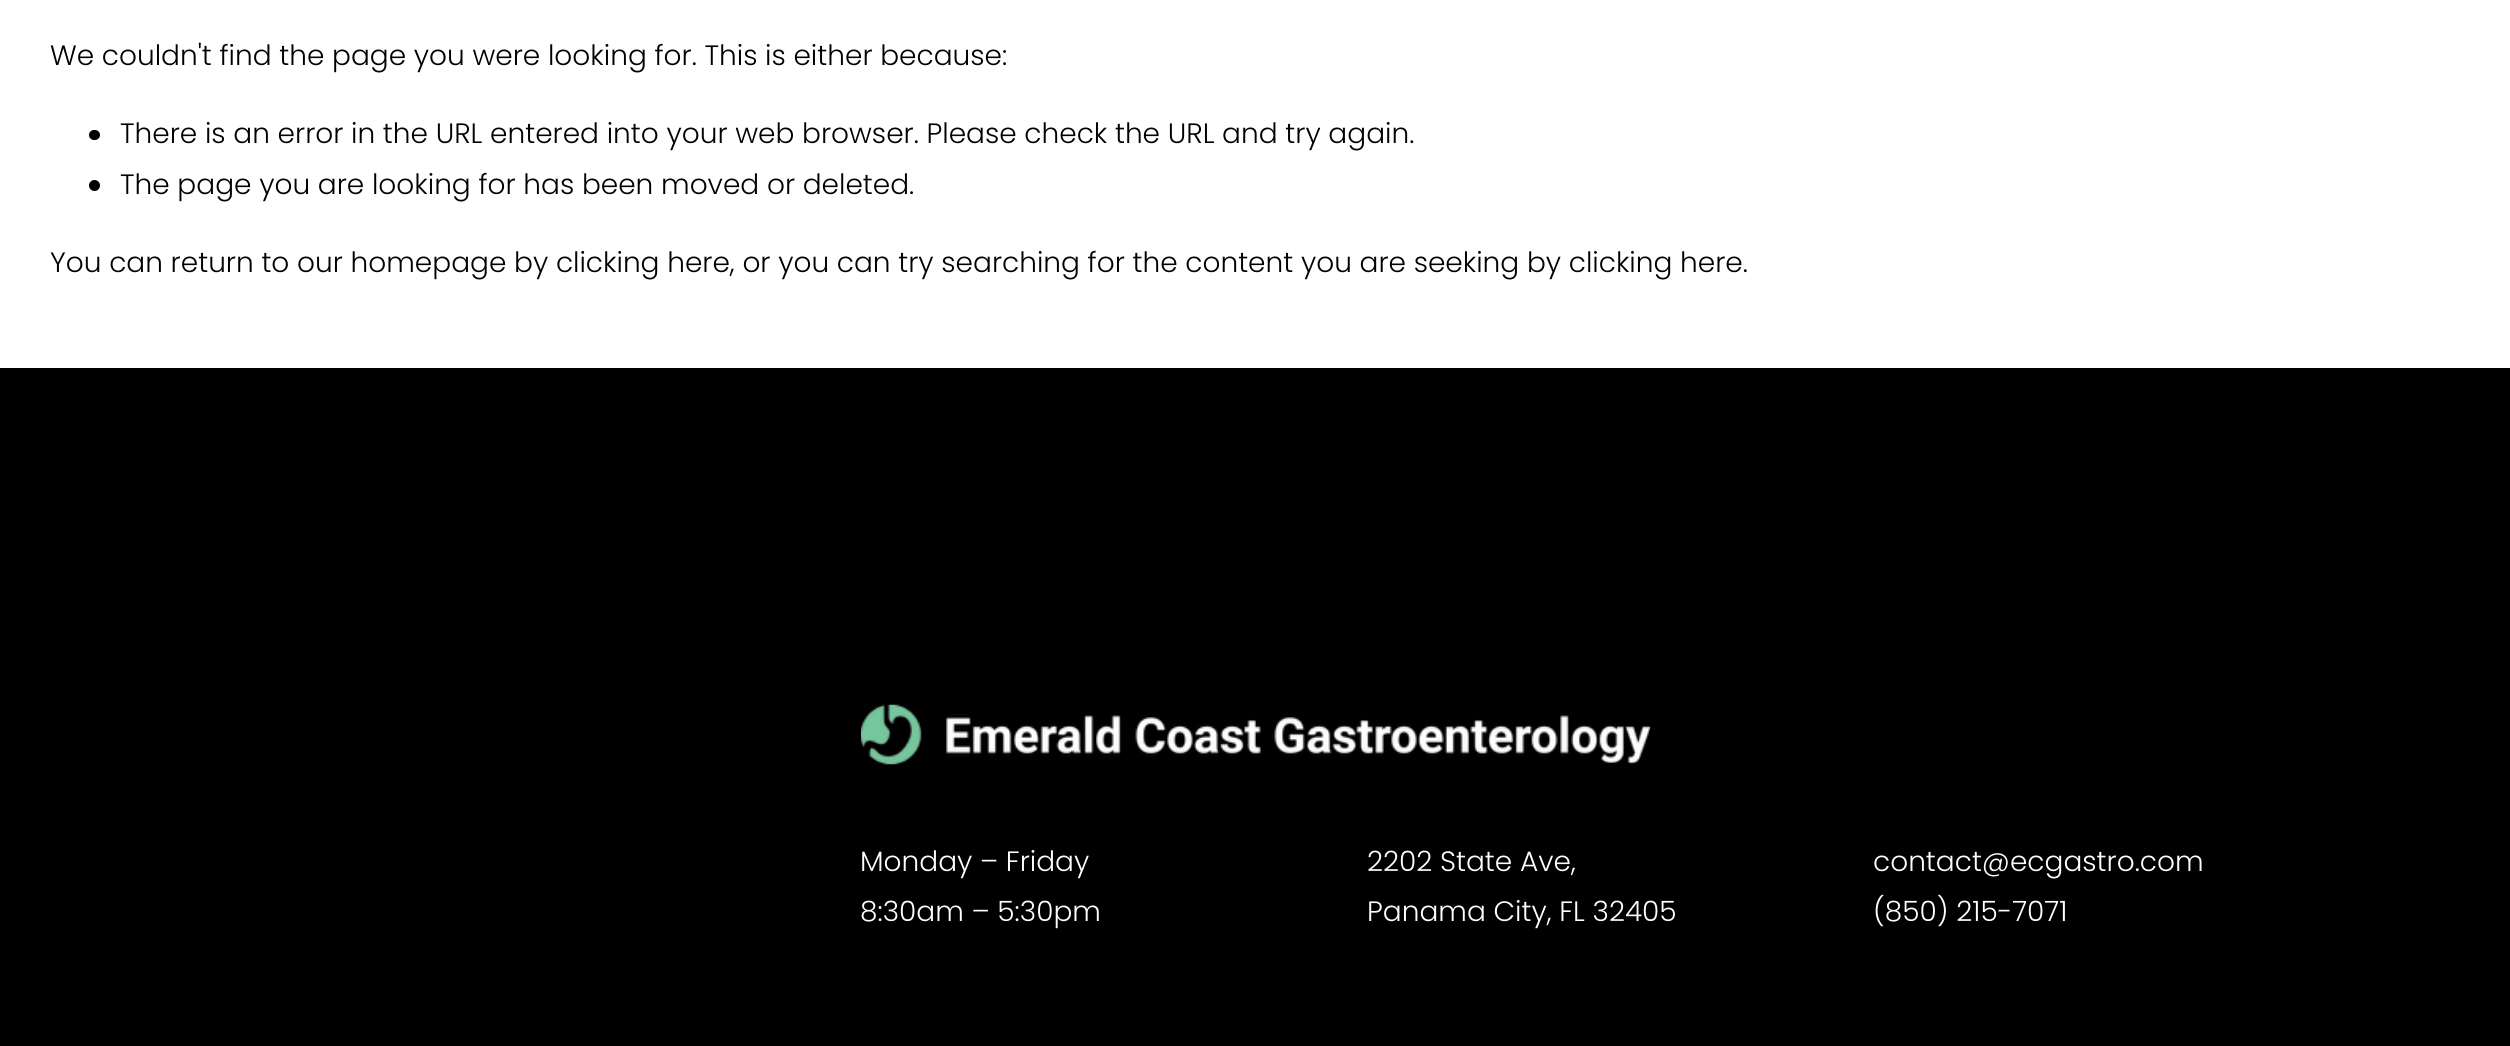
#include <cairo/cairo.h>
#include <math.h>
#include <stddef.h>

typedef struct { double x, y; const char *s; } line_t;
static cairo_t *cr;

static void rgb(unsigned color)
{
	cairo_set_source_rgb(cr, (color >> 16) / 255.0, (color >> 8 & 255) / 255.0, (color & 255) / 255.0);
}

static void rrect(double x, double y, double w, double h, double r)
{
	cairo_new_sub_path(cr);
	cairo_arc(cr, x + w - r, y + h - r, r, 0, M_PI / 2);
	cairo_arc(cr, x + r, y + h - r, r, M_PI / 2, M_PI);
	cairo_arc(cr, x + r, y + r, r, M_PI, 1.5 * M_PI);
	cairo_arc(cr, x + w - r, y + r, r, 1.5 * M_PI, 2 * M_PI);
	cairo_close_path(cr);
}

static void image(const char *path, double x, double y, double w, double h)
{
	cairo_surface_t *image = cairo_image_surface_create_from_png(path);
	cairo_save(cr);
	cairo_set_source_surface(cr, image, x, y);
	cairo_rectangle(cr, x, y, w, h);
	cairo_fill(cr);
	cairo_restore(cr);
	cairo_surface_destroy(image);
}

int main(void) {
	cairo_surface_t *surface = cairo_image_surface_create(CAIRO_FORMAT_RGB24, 2510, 1046);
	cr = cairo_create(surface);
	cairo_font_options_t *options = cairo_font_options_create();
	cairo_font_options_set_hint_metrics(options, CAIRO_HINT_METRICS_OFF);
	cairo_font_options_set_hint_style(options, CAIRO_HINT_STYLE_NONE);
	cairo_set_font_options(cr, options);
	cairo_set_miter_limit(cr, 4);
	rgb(0xffffff);
	cairo_paint(cr);
	rgb(0x000000);
	rrect(89, 130, 11, 10, 5);
	cairo_fill(cr);
	cairo_arc(cr, 94.5, 185.5, 5.5, 0, 2 * M_PI);
	cairo_fill(cr);
	cairo_rectangle(cr, 0, 368, 2510, 678);
	cairo_fill(cr);
	image("img/1.png", 861, 704, 790, 61);
	cairo_select_font_face(cr, "Poppins Light", CAIRO_FONT_SLANT_NORMAL, CAIRO_FONT_WEIGHT_NORMAL);
	cairo_set_font_size(cr, 28);
	{
		static const line_t items[] = {
			{50, 65, "We couldn't find the page you were looking for. This is either because:"},
			{120, 143, "There is an error in the URL entered into your web browser. Please check the URL and try again."},
			{120, 194, "The page you are looking for has been moved or deleted."},
			{50, 272, "You can return to our homepage by clicking here, or you can try searching for the content you are seeking by clicking here."},
		};
		for (size_t i = 0; i < sizeof items / sizeof *items; i++) {
			cairo_move_to(cr, items[i].x, items[i].y);
			cairo_show_text(cr, items[i].s);
		}
	}
	rgb(0xffffff);
	{
		static const line_t items[] = {
			{860, 871, "Monday – Friday"},
			{860, 921, "8:30am – 5:30pm"},
			{1367, 871, "2202 State Ave,"},
			{1367, 921, "Panama City, FL 32405"},
			{1873, 871, "contact@ecgastro.com"},
			{1873, 921, "(850) 215-7071"},
		};
		for (size_t i = 0; i < sizeof items / sizeof *items; i++) {
			cairo_move_to(cr, items[i].x, items[i].y);
			cairo_show_text(cr, items[i].s);
		}
	}
	cairo_surface_write_to_png(surface, "page.png");
	cairo_font_options_destroy(options);
	cairo_destroy(cr);
	cairo_surface_destroy(surface);
	return 0;
}
